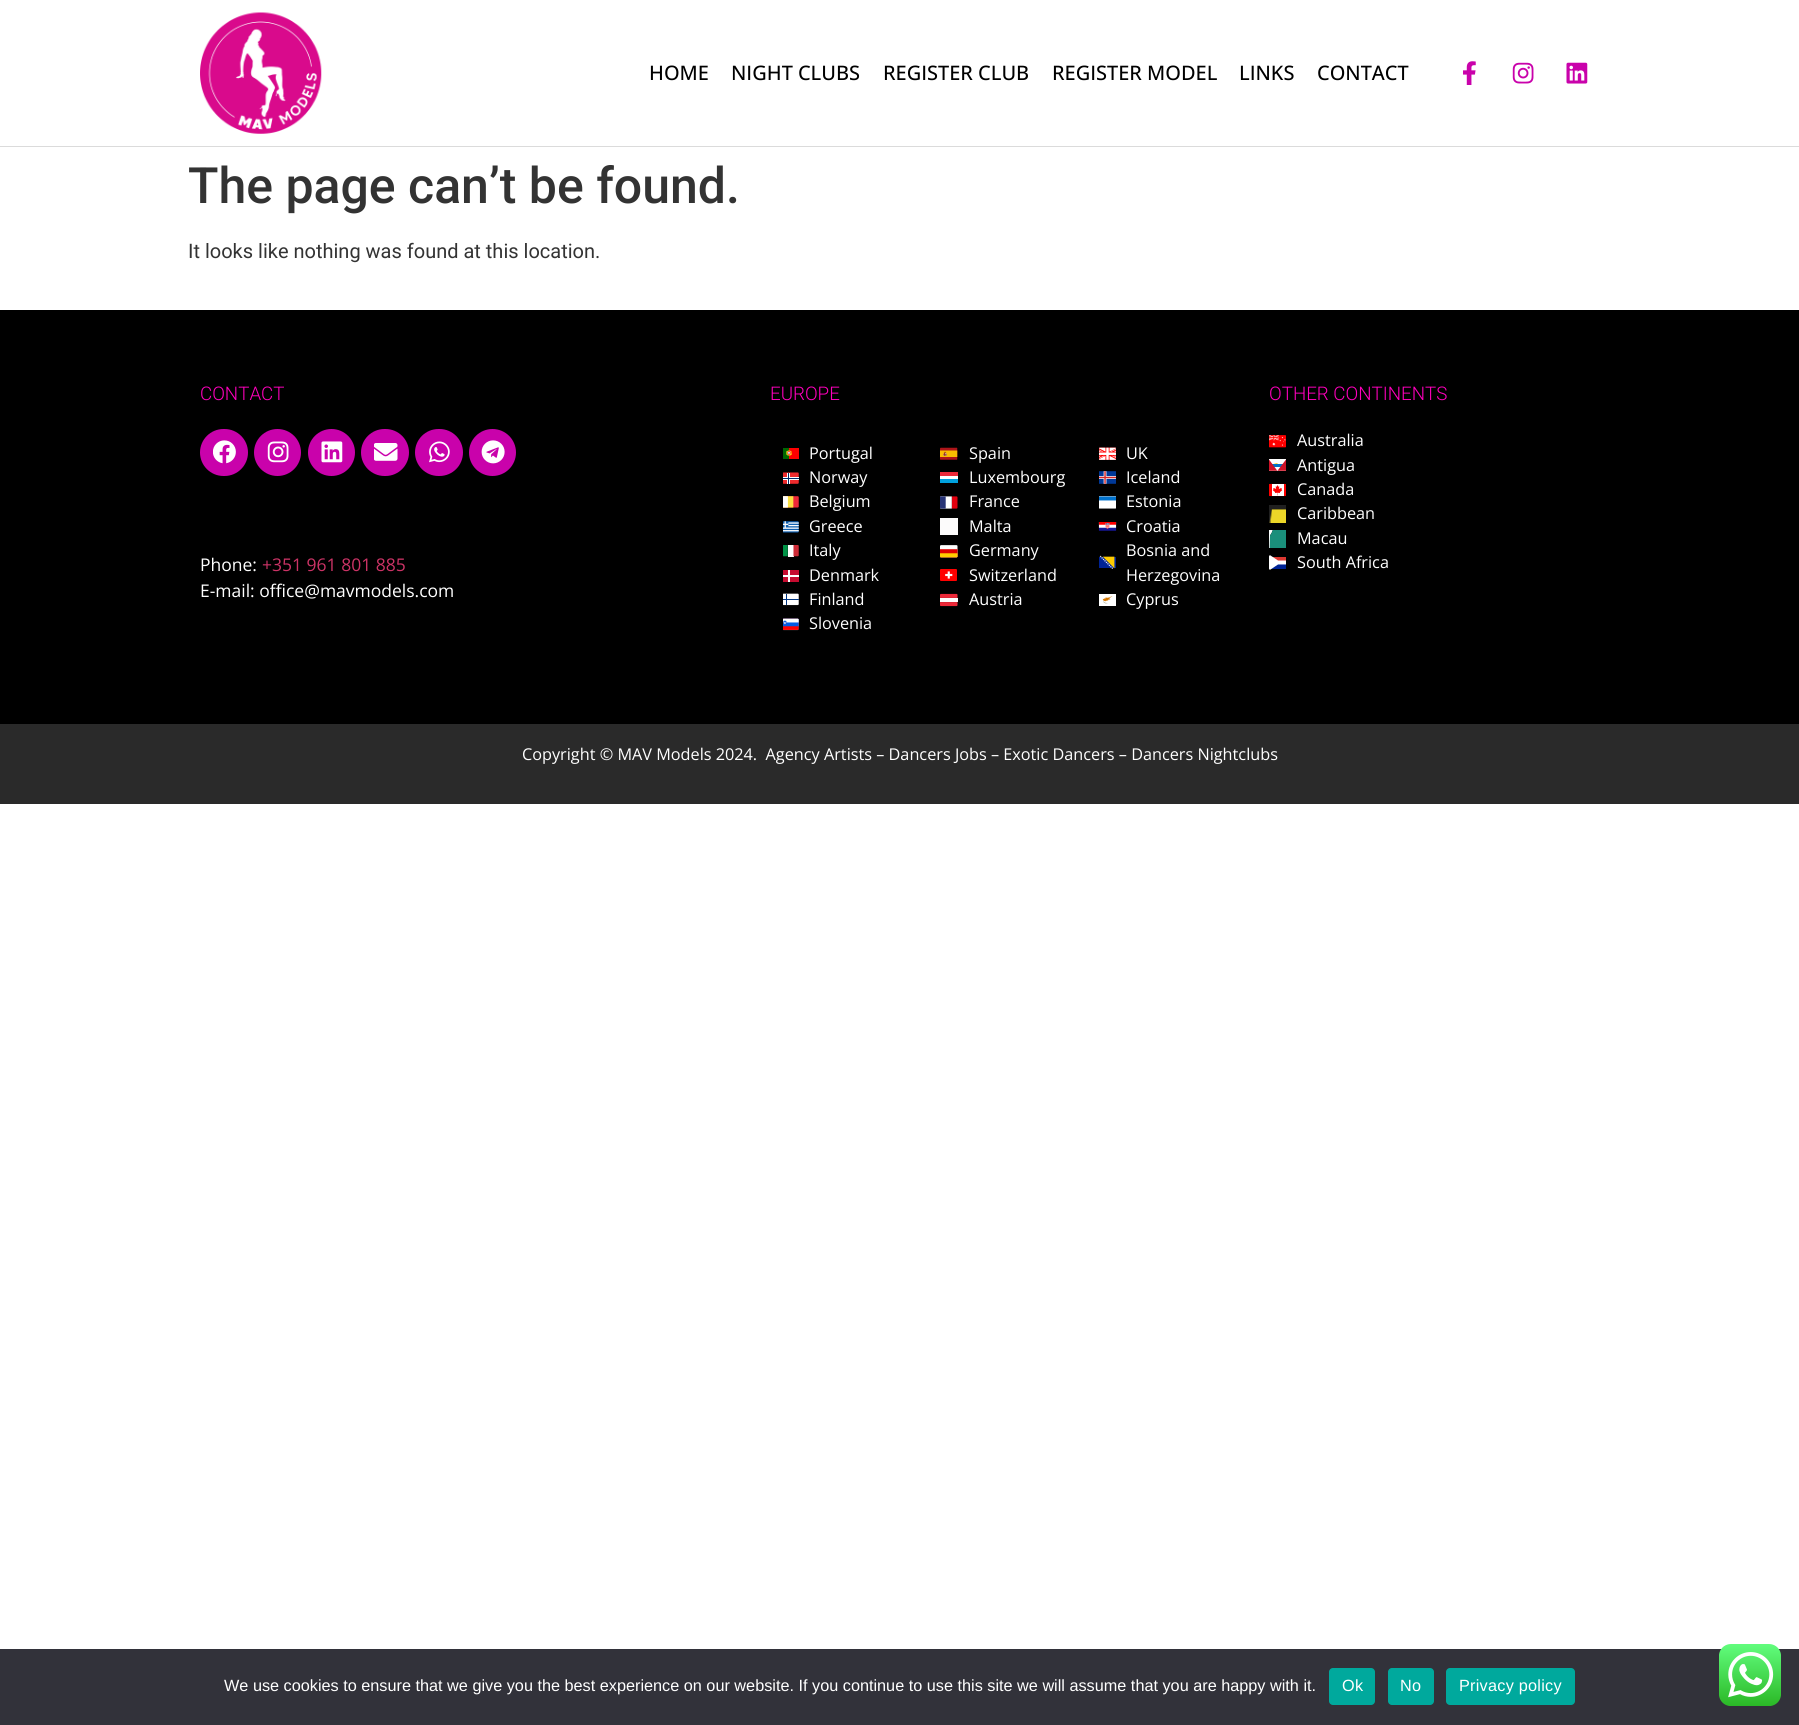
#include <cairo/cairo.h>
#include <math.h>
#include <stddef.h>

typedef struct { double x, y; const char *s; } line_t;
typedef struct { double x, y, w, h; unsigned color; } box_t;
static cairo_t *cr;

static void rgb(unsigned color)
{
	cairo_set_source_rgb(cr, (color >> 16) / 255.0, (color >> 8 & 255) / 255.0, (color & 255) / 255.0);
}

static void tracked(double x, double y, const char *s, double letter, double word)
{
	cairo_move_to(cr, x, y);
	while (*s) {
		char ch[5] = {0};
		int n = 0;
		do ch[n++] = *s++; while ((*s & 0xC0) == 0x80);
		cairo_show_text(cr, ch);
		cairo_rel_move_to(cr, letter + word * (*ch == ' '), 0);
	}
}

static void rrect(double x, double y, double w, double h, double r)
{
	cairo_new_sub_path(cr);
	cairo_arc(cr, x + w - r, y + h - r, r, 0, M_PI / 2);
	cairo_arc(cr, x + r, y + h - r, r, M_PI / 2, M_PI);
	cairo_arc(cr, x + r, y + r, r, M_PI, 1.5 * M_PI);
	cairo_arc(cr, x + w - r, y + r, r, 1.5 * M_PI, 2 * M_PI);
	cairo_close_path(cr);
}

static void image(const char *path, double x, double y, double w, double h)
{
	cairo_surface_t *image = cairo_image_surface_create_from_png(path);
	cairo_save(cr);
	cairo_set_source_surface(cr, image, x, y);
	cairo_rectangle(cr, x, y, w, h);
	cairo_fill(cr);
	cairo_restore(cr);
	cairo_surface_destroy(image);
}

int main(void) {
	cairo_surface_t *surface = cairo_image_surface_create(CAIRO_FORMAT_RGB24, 1799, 1725);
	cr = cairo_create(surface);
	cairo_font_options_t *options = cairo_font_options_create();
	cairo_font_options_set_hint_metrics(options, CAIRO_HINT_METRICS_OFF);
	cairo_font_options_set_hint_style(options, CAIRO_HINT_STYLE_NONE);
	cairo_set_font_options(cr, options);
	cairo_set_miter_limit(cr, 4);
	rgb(0xffffff);
	cairo_paint(cr);
	rgb(0xdbdbdb);
	cairo_rectangle(cr, 0, 146, 1799, 1);
	cairo_fill(cr);
	image("img/1.png", 200, 12, 122, 122);
	image("img/2.png", 1463, 61, 13, 24);
	image("img/3.png", 1512, 62, 22, 22);
	image("img/4.png", 1566, 62, 22, 22);
	rgb(0x000000);
	cairo_rectangle(cr, 0, 310, 1799, 414);
	cairo_fill(cr);
	rgb(0xc902ab);
	rrect(200, 429, 48, 47, 23.5);
	cairo_fill(cr);
	image("img/5.png", 213, 440, 23, 24);
	cairo_arc(cr, 277.5, 452.5, 23.5, 0, 2 * M_PI);
	cairo_fill(cr);
	image("img/6.png", 267, 441, 22, 22);
	cairo_arc(cr, 331.5, 452.5, 23.5, 0, 2 * M_PI);
	cairo_fill(cr);
	image("img/7.png", 321, 441, 22, 22);
	rrect(361, 429, 48, 47, 23.5);
	cairo_fill(cr);
	image("img/8.png", 374, 443, 24, 18);
	rrect(415, 429, 48, 47, 23.5);
	cairo_fill(cr);
	image("img/9.png", 429, 441, 21, 22);
	cairo_arc(cr, 492.5, 452.5, 23.5, 0, 2 * M_PI);
	cairo_fill(cr);
	image("img/10.png", 481, 440, 24, 24);
	image("img/11.png", 783, 448, 16, 11);
	image("img/12.png", 783, 472, 16, 12);
	image("img/13.png", 783, 496, 16, 12);
	image("img/14.png", 783, 521, 16, 12);
	image("img/15.png", 783, 545, 16, 12);
	{
		static const box_t items[] = {
			{783, 570, 16, 12, 0xc60c30},
			{788, 570, 2, 12, 0xffffff},
			{783, 575, 16, 2, 0xffffff},
		};
		for (size_t i = 0; i < sizeof items / sizeof *items; i++) {
			rgb(items[i].color);
			cairo_rectangle(cr, items[i].x, items[i].y, items[i].w, items[i].h);
			cairo_fill(cr);
		}
	}
	image("img/16.png", 783, 593, 16, 13);
	image("img/17.png", 783, 618, 16, 13);
	image("img/18.png", 940, 447, 18, 13);
	{
		static const box_t items[] = {
			{940, 479, 18, 4, 0x00a1de},
			{940, 472, 18, 4, 0xed2939},
			{940, 476, 18, 3, 0xffffff},
		};
		for (size_t i = 0; i < sizeof items / sizeof *items; i++) {
			rgb(items[i].color);
			cairo_rectangle(cr, items[i].x, items[i].y, items[i].w, items[i].h);
			cairo_fill(cr);
		}
	}
	image("img/19.png", 940, 496, 18, 13);
	rgb(0xfcfbfb);
	cairo_rectangle(cr, 940, 518, 18, 17);
	cairo_fill(cr);
	image("img/20.png", 940, 545, 18, 13);
	image("img/21.png", 940, 569, 17, 12);
	image("img/22.png", 940, 593, 18, 14);
	image("img/23.png", 1099, 447, 17, 13);
	image("img/24.png", 1099, 471, 17, 13);
	image("img/25.png", 1099, 496, 17, 13);
	image("img/26.png", 1098, 522, 19, 9);
	image("img/27.png", 1099, 555, 17, 14);
	image("img/28.png", 1099, 594, 17, 12);
	image("img/29.png", 1269, 435, 17, 13);
	image("img/30.png", 1269, 459, 17, 12);
	image("img/31.png", 1269, 483, 17, 14);
	image("img/32.png", 1269, 505, 17, 18);
	image("img/33.png", 1269, 530, 17, 18);
	image("img/34.png", 1269, 555, 17, 15);
	rgb(0x2a2a2a);
	cairo_rectangle(cr, 0, 724, 1799, 80);
	cairo_fill(cr);
	rgb(0x32323a);
	cairo_rectangle(cr, 0, 1649, 1799, 76);
	cairo_fill(cr);
	rgb(0x00a99d);
	rrect(1329, 1668, 46, 37, 4);
	cairo_fill(cr);
	rrect(1388, 1668, 46, 37, 4);
	cairo_fill(cr);
	rrect(1446, 1668, 129, 37, 4);
	cairo_fill(cr);
	image("img/35.png", 1719, 1644, 62, 62);
	cairo_select_font_face(cr, "Open Sans Medium", CAIRO_FONT_SLANT_NORMAL, CAIRO_FONT_WEIGHT_NORMAL);
	cairo_set_font_size(cr, 20);
	rgb(0x000000);
	{
		static const line_t items[] = {
			{649, 80, "HOME"},
			{731, 80, "NIGHT CLUBS"},
			{883, 80, "REGISTER CLUB"},
			{1052, 80, "REGISTER MODEL"},
			{1239, 80, "LINKS"},
			{1317, 80, "CONTACT"},
		};
		for (size_t i = 0; i < sizeof items / sizeof *items; i++) {
			cairo_move_to(cr, items[i].x, items[i].y);
			cairo_show_text(cr, items[i].s);
		}
	}
	cairo_select_font_face(cr, "Roboto Medium", CAIRO_FONT_SLANT_NORMAL, CAIRO_FONT_WEIGHT_NORMAL);
	cairo_set_font_size(cr, 50);
	rgb(0x333333);
	cairo_move_to(cr, 188, 203);
	cairo_show_text(cr, "The page can’t be found.");
	cairo_select_font_face(cr, "Roboto", CAIRO_FONT_SLANT_NORMAL, CAIRO_FONT_WEIGHT_NORMAL);
	cairo_set_font_size(cr, 20);
	cairo_move_to(cr, 188, 258);
	cairo_show_text(cr, "It looks like nothing was found at this location.");
	cairo_select_font_face(cr, "Roboto Light", CAIRO_FONT_SLANT_NORMAL, CAIRO_FONT_WEIGHT_NORMAL);
	cairo_set_font_size(cr, 18.75);
	rgb(0xff00bd);
	cairo_move_to(cr, 200, 400);
	cairo_show_text(cr, "CONTACT");
	cairo_select_font_face(cr, "Open Sans", CAIRO_FONT_SLANT_NORMAL, CAIRO_FONT_WEIGHT_NORMAL);
	cairo_set_font_size(cr, 17.5);
	rgb(0xffffff);
	cairo_move_to(cr, 200, 571);
	cairo_show_text(cr, "Phone:");
	rgb(0xcc3366);
	cairo_move_to(cr, 262, 571);
	cairo_show_text(cr, "+351 961 801 885");
	rgb(0xffffff);
	cairo_move_to(cr, 200, 597);
	cairo_show_text(cr, "E-mail: office@mavmodels.com");
	cairo_select_font_face(cr, "Roboto Light", CAIRO_FONT_SLANT_NORMAL, CAIRO_FONT_WEIGHT_NORMAL);
	cairo_set_font_size(cr, 18.75);
	rgb(0xff00bd);
	cairo_move_to(cr, 770, 400);
	cairo_show_text(cr, "EUROPE");
	cairo_select_font_face(cr, "Open Sans", CAIRO_FONT_SLANT_NORMAL, CAIRO_FONT_WEIGHT_NORMAL);
	cairo_set_font_size(cr, 16.25);
	rgb(0xffffff);
	{
		static const line_t items[] = {
			{809, 459, "Portugal"},
			{809, 483, "Norway"},
			{809, 507, "Belgium"},
			{809, 532, "Greece"},
			{809, 556, "Italy"},
			{809, 581, "Denmark"},
			{809, 605, "Finland"},
			{809, 629, "Slovenia"},
			{969, 459, "Spain"},
			{969, 483, "Luxembourg"},
			{969, 507, "France"},
			{969, 532, "Malta"},
			{969, 556, "Germany"},
			{969, 581, "Switzerland"},
			{969, 605, "Austria"},
			{1126, 459, "UK"},
			{1126, 483, "Iceland"},
			{1126, 507, "Estonia"},
			{1126, 532, "Croatia"},
			{1126, 556, "Bosnia and"},
			{1126, 581, "Herzegovina"},
			{1126, 605, "Cyprus"},
		};
		for (size_t i = 0; i < sizeof items / sizeof *items; i++) {
			cairo_move_to(cr, items[i].x, items[i].y);
			cairo_show_text(cr, items[i].s);
		}
	}
	cairo_select_font_face(cr, "Roboto Light", CAIRO_FONT_SLANT_NORMAL, CAIRO_FONT_WEIGHT_NORMAL);
	cairo_set_font_size(cr, 18.75);
	rgb(0xff00bd);
	cairo_move_to(cr, 1269, 400);
	cairo_show_text(cr, "OTHER CONTINENTS");
	cairo_select_font_face(cr, "Open Sans", CAIRO_FONT_SLANT_NORMAL, CAIRO_FONT_WEIGHT_NORMAL);
	cairo_set_font_size(cr, 16.25);
	rgb(0xffffff);
	{
		static const line_t items[] = {
			{1297, 446, "Australia"},
			{1297, 471, "Antigua"},
			{1297, 495, "Canada"},
			{1297, 519, "Caribbean"},
			{1297, 544, "Macau"},
			{1297, 568, "South Africa"},
			{522, 760, "Copyright © MAV Models 2024.  Agency Artists – Dancers Jobs – Exotic Dancers – Dancers Nightclubs"},
		};
		for (size_t i = 0; i < sizeof items / sizeof *items; i++) {
			cairo_move_to(cr, items[i].x, items[i].y);
			cairo_show_text(cr, items[i].s);
		}
	}
	cairo_select_font_face(cr, "Liberation Sans", CAIRO_FONT_SLANT_NORMAL, CAIRO_FONT_WEIGHT_NORMAL);
	cairo_move_to(cr, 224, 1691);
	cairo_show_text(cr, "We use cookies to ensure that we give you the best experience on our website. If you continue to use this site we will assume that you are happy with it.");
	{
		static const line_t items[] = {
			{1342, 1691, "Ok"},
			{1400, 1691, "No"},
			{1459, 1691, "Privacy policy"},
		};
		for (size_t i = 0; i < sizeof items / sizeof *items; i++) {
			tracked(items[i].x, items[i].y, items[i].s, 0.25, 0);
		}
	}
	cairo_surface_write_to_png(surface, "page.png");
	cairo_font_options_destroy(options);
	cairo_destroy(cr);
	cairo_surface_destroy(surface);
	return 0;
}
